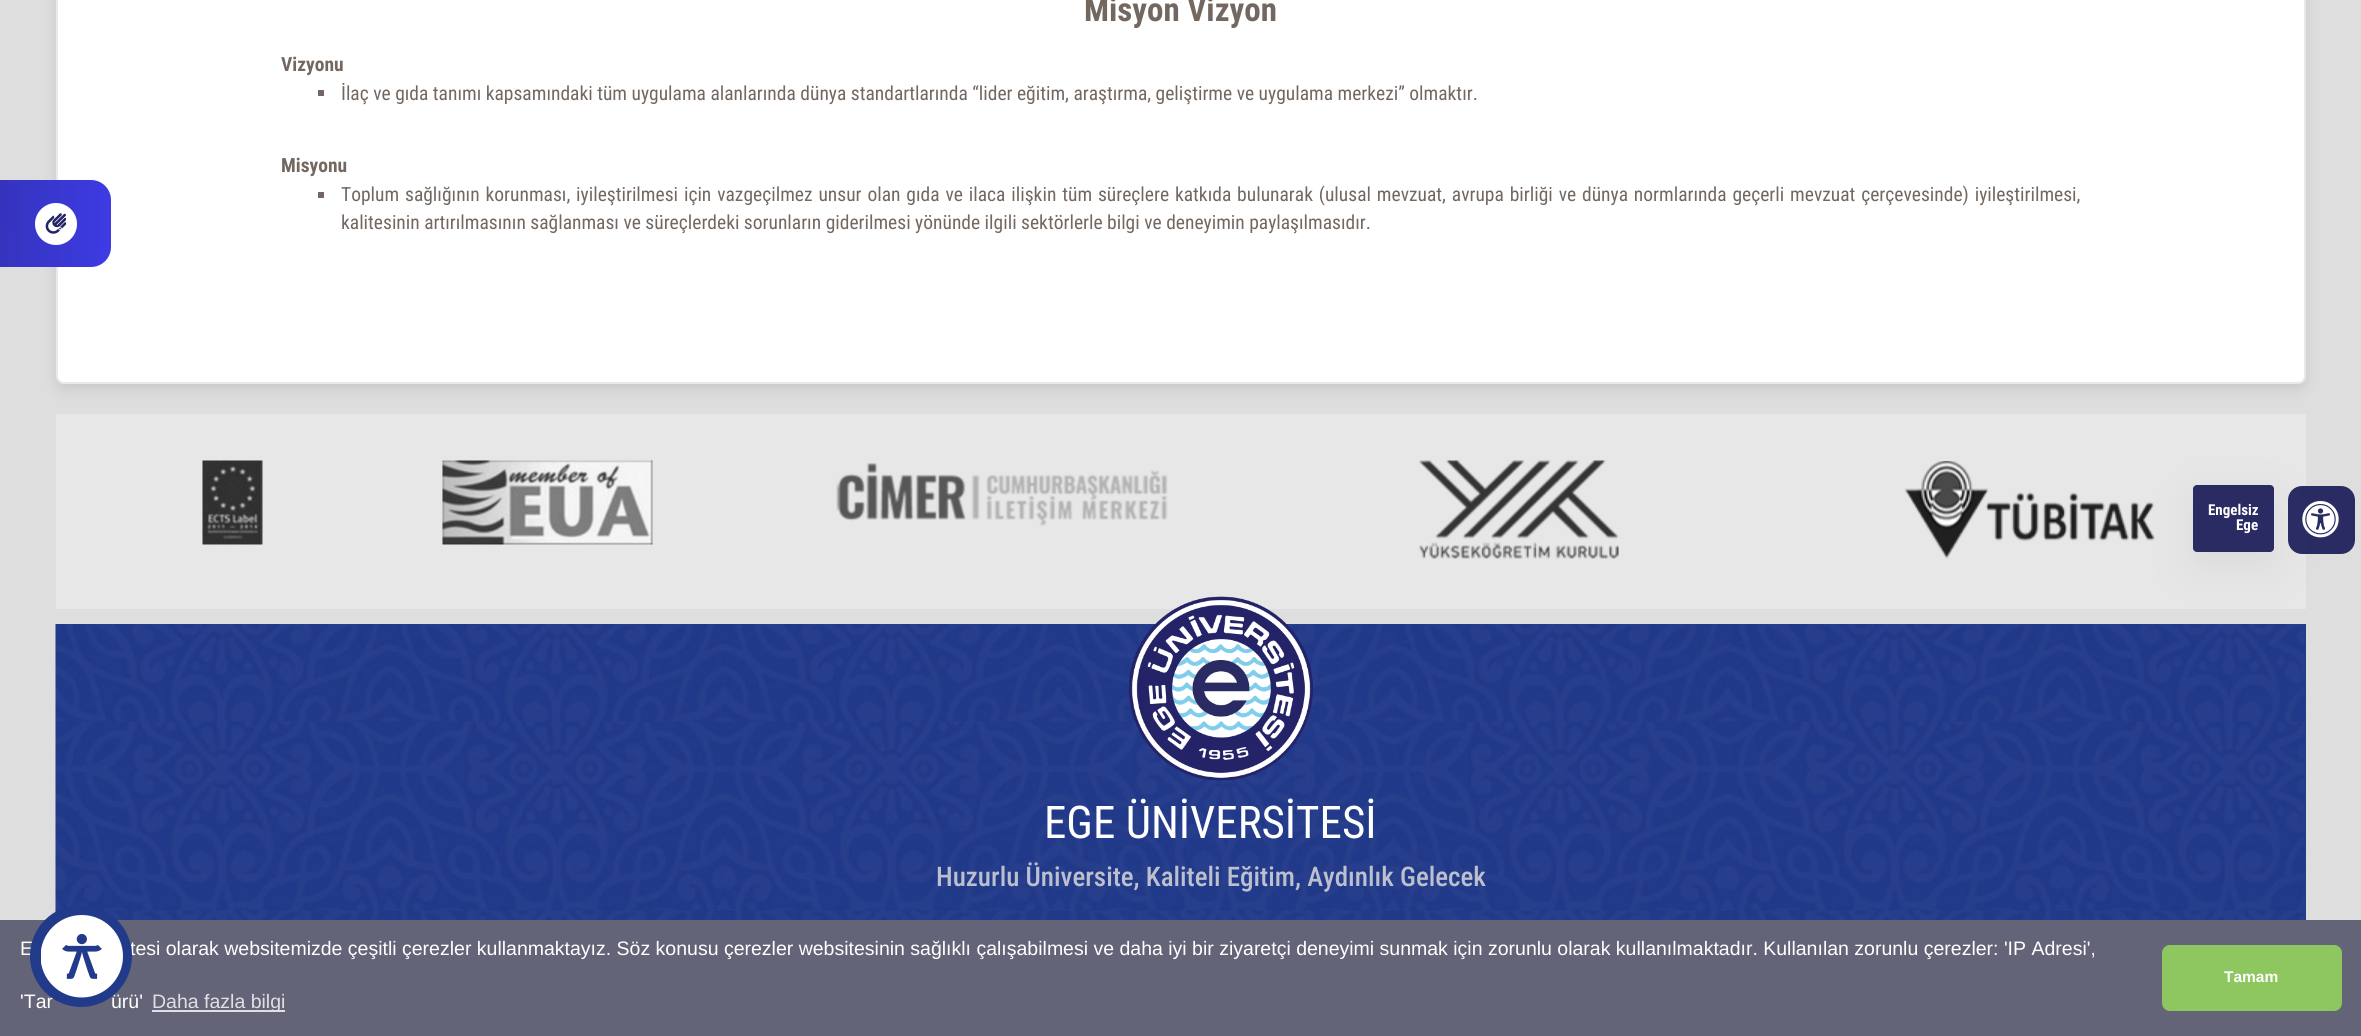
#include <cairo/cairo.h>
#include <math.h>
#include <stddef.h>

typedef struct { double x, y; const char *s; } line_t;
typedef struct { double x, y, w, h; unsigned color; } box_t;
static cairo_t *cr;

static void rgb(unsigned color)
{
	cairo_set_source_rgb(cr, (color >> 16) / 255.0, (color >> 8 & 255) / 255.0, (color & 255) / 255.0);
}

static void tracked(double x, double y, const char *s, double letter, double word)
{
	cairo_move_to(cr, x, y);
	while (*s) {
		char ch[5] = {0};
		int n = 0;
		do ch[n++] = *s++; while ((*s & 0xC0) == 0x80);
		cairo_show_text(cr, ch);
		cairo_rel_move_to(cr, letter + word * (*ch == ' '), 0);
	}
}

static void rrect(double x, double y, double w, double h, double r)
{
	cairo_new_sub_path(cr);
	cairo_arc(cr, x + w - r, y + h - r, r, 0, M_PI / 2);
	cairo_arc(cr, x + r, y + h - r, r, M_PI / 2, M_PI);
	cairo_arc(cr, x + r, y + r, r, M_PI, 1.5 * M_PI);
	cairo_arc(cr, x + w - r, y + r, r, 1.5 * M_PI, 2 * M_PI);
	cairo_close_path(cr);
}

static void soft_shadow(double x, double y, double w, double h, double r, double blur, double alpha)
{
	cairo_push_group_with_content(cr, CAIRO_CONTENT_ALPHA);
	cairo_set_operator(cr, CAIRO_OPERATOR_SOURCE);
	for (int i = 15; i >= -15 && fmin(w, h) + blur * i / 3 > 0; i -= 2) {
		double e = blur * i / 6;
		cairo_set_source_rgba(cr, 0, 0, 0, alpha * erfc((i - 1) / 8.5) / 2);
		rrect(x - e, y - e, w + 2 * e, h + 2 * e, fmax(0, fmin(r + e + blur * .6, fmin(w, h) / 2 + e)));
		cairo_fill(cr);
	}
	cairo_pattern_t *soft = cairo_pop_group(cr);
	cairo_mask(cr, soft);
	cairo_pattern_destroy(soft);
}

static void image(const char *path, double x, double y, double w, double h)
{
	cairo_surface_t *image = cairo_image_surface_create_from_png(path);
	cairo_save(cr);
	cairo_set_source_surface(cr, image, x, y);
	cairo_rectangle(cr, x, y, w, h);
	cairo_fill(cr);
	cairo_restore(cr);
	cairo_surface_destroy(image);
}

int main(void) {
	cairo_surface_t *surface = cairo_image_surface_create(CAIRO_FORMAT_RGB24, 2361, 1036);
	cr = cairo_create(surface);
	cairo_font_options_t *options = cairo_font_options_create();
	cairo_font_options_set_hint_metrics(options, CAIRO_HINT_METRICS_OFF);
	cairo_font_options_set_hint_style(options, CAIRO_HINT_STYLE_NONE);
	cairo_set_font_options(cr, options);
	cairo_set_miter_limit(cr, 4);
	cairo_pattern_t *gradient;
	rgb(0xdedede);
	cairo_paint(cr);
	rgb(0x000000);
	soft_shadow(56, -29, 2250, 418, 8, 7, 0.1);
	rgb(0xffffff);
	cairo_new_path(cr);
	cairo_move_to(cr, 57, -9);
	cairo_line_to(cr, 2305, -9);
	cairo_line_to(cr, 2305, 376);
	cairo_curve_to(cr, 2305, 380, 2302, 383, 2298, 383);
	cairo_line_to(cr, 64, 383);
	cairo_curve_to(cr, 60, 383, 57, 380, 57, 376);
	cairo_close_path(cr);
	cairo_fill_preserve(cr);
	rgb(0xe6e9ed);
	cairo_stroke(cr);
	gradient = cairo_pattern_create_linear(-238, 221, 112, 226);
	cairo_pattern_add_color_stop_rgba(gradient, 0, 0.141, 0.137, 0.408, 1);
	cairo_pattern_add_color_stop_rgba(gradient, 0.99, 0.239, 0.231, 0.89, 1);
	cairo_set_source(cr, gradient);
	cairo_pattern_destroy(gradient);
	rrect(-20, 180, 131, 87, 20);
	cairo_fill(cr);
	rgb(0xffffff);
	cairo_arc(cr, 56, 224, 21, 0, 2 * M_PI);
	cairo_fill(cr);
	image("img/1.png", 45, 213, 21, 21);
	{
		static const box_t items[] = {
			{318, 90, 6, 6, 0x736861},
			{318, 192, 6, 6, 0x736861},
			{56, 414, 2250, 195, 0xe7e7e7},
		};
		for (size_t i = 0; i < sizeof items / sizeof *items; i++) {
			rgb(items[i].color);
			cairo_rectangle(cr, items[i].x, items[i].y, items[i].w, items[i].h);
			cairo_fill(cr);
		}
	}
	image("img/2.png", 202, 460, 61, 85);
	image("img/3.png", 442, 460, 211, 85);
	image("img/4.png", 836, 462, 332, 64);
	image("img/5.png", 1419, 460, 200, 99);
	image("img/6.png", 1904, 461, 251, 98);
	rgb(0x213a8a);
	cairo_rectangle(cr, 2305, 624, 1, 296);
	cairo_fill(cr);
	image("img/7.png", 55, 624, 2250, 296);
	image("img/8.png", 1128, 596, 185, 185);
	rgb(0x2b2b64);
	rrect(2288, 486, 67, 68, 14);
	cairo_fill(cr);
	image("img/9.png", 2302, 501, 37, 37);
	rgb(0x666666);
	soft_shadow(2193, 500, 81, 67, 4, 22.5, 0.1);
	rgb(0x2b2b64);
	rrect(2193, 485, 81, 67, 4);
	cairo_fill(cr);
	rgb(0x646478);
	cairo_rectangle(cr, 0, 920, 2361, 116);
	cairo_fill(cr);
	rgb(0xe0e0e4);
	cairo_rectangle(cr, 152, 1010, 133, 2);
	cairo_fill(cr);
	rgb(0x8ec760);
	rrect(2162, 945, 180, 66, 8);
	cairo_fill(cr);
	cairo_select_font_face(cr, "Roboto Condensed", CAIRO_FONT_SLANT_NORMAL, CAIRO_FONT_WEIGHT_BOLD);
	cairo_set_font_size(cr, 33);
	rgb(0x736861);
	cairo_move_to(cr, 1084, 21);
	cairo_show_text(cr, "Misyon Vizyon");
	cairo_set_font_size(cr, 19.5);
	cairo_move_to(cr, 281, 71);
	cairo_show_text(cr, "Vizyonu");
	cairo_select_font_face(cr, "Roboto Condensed", CAIRO_FONT_SLANT_NORMAL, CAIRO_FONT_WEIGHT_NORMAL);
	cairo_move_to(cr, 341, 100);
	cairo_show_text(cr, "İlaç ve gıda tanımı kapsamındaki tüm uygulama alanlarında dünya standartlarında “lider eğitim, araştırma, geliştirme ve uygulama merkezi” olmaktır.");
	cairo_select_font_face(cr, "Roboto Condensed", CAIRO_FONT_SLANT_NORMAL, CAIRO_FONT_WEIGHT_BOLD);
	cairo_move_to(cr, 281, 172);
	cairo_show_text(cr, "Misyonu");
	cairo_select_font_face(cr, "Roboto Condensed", CAIRO_FONT_SLANT_NORMAL, CAIRO_FONT_WEIGHT_NORMAL);
	tracked(341, 201, "Toplum sağlığının korunması, iyileştirilmesi için vazgeçilmez unsur olan gıda ve ilaca ilişkin tüm süreçlere katkıda bulunarak (ulusal mevzuat, avrupa birliği ve dünya normlarında geçerli mevzuat çerçevesinde) iyileştirilmesi,", 0, 1.4);
	cairo_move_to(cr, 341, 229);
	cairo_show_text(cr, "kalitesinin artırılmasının sağlanması ve süreçlerdeki sorunların giderilmesi yönünde ilgili sektörlerle bilgi ve deneyimin paylaşılmasıdır.");
	cairo_set_font_size(cr, 45);
	rgb(0xffffff);
	cairo_move_to(cr, 1044, 838);
	cairo_show_text(cr, "EGE ÜNİVERSİTESİ");
	cairo_select_font_face(cr, "Roboto Condensed Medium", CAIRO_FONT_SLANT_NORMAL, CAIRO_FONT_WEIGHT_NORMAL);
	cairo_set_font_size(cr, 27);
	rgb(0xbcc0ce);
	cairo_move_to(cr, 936, 886);
	cairo_show_text(cr, "Huzurlu Üniversite, Kaliteli Eğitim, Aydınlık Gelecek");
	cairo_select_font_face(cr, "Roboto Condensed", CAIRO_FONT_SLANT_NORMAL, CAIRO_FONT_WEIGHT_BOLD);
	cairo_set_font_size(cr, 15);
	rgb(0xffffff);
	cairo_move_to(cr, 2208, 515);
	cairo_show_text(cr, "Engelsiz");
	cairo_move_to(cr, 2236, 530);
	cairo_show_text(cr, "Ege");
	cairo_select_font_face(cr, "Liberation Sans", CAIRO_FONT_SLANT_NORMAL, CAIRO_FONT_WEIGHT_NORMAL);
	cairo_set_font_size(cr, 19.5);
	{
		static const line_t items[] = {
			{20, 955, "E"},
			{130, 955, "tesi olarak websitemizde çeşitli çerezler kullanmaktayız. Söz konusu çerezler websitesinin sağlıklı çalışabilmesi ve daha iyi bir ziyaretçi deneyimi sunmak için zorunlu olarak kullanılmaktadır. Kullanılan zorunlu çerezler: 'IP Adresi',"},
			{20, 1008, "'Tar"},
			{111, 1008, "ürü'"},
		};
		for (size_t i = 0; i < sizeof items / sizeof *items; i++) {
			cairo_move_to(cr, items[i].x, items[i].y);
			cairo_show_text(cr, items[i].s);
		}
	}
	rgb(0x213a8a);
	cairo_new_path(cr);
	cairo_arc(cr, 81, 956, 51, 0, 2 * M_PI);
	cairo_fill(cr);
	image("img/10.png", 41, 915, 82, 83);
	rgb(0xe0e0e4);
	cairo_move_to(cr, 152, 1008);
	cairo_show_text(cr, "Daha fazla bilgi");
	cairo_select_font_face(cr, "Liberation Sans", CAIRO_FONT_SLANT_NORMAL, CAIRO_FONT_WEIGHT_BOLD);
	cairo_set_font_size(cr, 15.5);
	rgb(0xffffff);
	cairo_move_to(cr, 2224, 982);
	cairo_show_text(cr, "Tamam");
	cairo_surface_write_to_png(surface, "page.png");
	cairo_font_options_destroy(options);
	cairo_destroy(cr);
	cairo_surface_destroy(surface);
	return 0;
}
